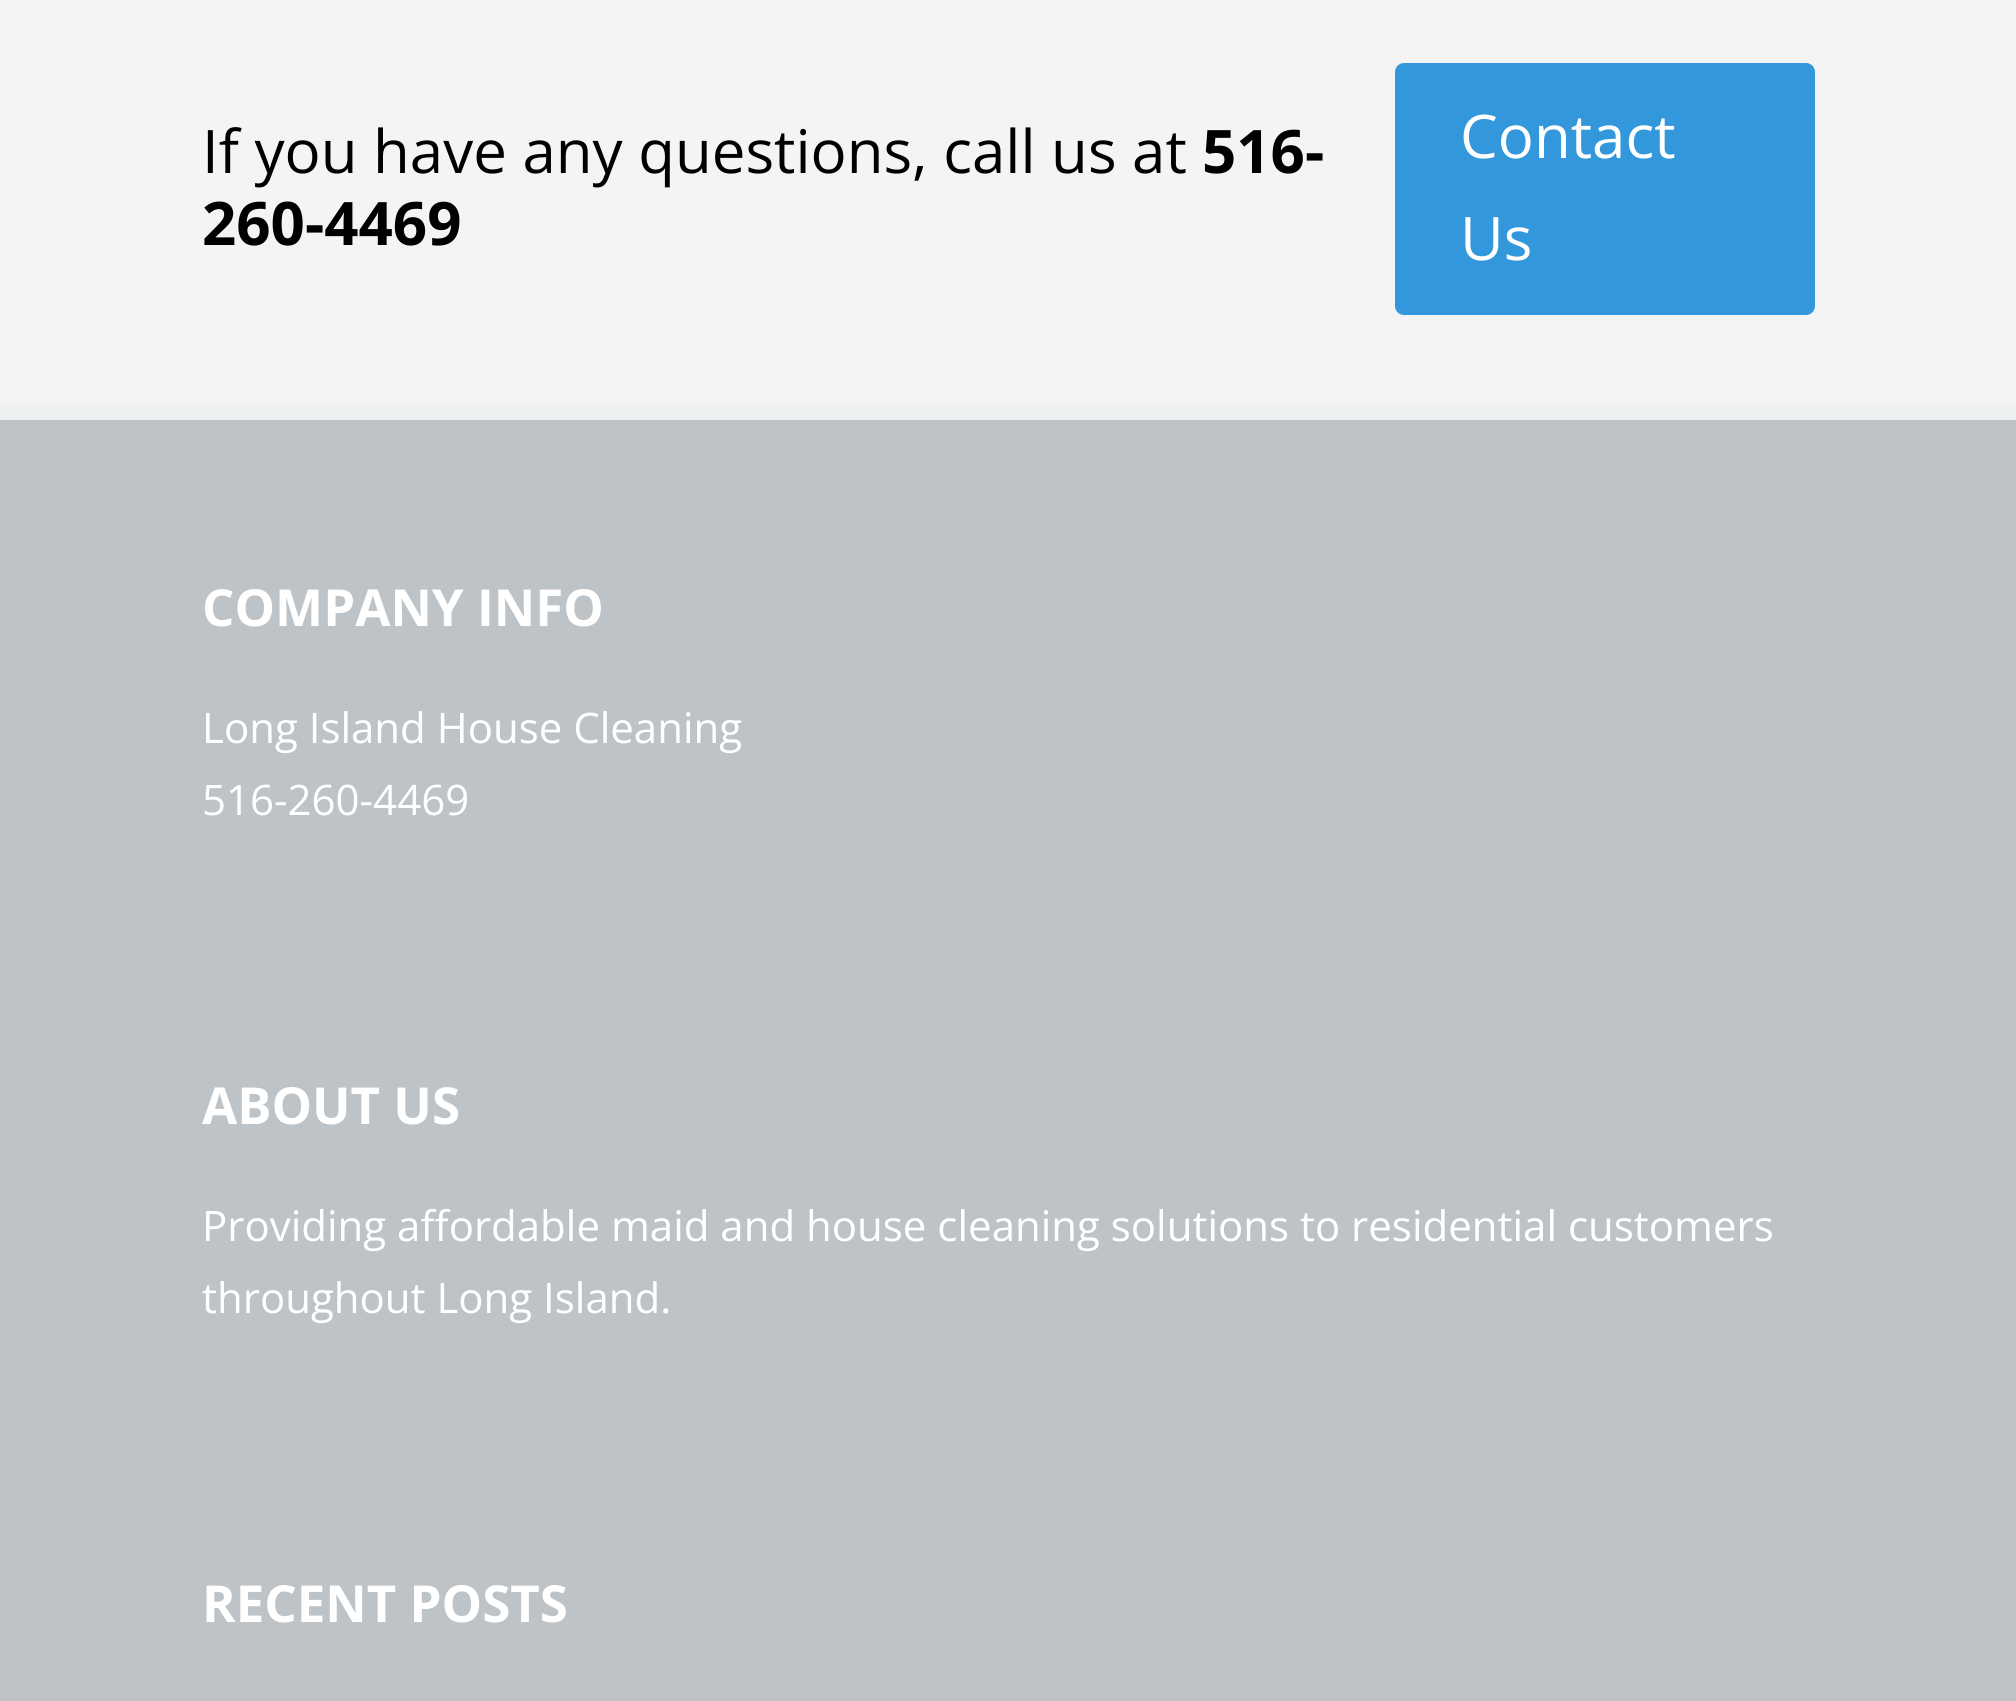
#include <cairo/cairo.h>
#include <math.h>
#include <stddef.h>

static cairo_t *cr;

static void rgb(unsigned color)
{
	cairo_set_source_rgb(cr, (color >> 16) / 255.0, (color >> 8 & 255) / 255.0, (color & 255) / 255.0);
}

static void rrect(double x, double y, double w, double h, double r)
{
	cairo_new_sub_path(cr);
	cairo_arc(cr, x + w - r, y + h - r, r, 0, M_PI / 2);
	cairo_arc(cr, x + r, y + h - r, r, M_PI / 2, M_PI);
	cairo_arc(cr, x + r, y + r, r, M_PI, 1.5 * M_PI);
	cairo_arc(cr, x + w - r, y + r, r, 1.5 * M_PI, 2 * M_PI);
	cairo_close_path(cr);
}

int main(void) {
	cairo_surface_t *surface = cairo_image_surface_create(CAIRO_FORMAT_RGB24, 2016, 1701);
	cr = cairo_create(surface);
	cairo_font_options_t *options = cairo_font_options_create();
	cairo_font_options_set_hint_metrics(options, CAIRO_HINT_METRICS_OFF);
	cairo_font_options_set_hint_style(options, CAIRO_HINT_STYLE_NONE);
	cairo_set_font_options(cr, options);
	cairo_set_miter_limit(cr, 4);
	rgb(0xbec3c7);
	cairo_paint(cr);
	rgb(0xf4f4f4);
	cairo_rectangle(cr, 0, 0, 2016, 405);
	cairo_fill(cr);
	rgb(0x3297db);
	rrect(1398, 66, 414, 246, 6);
	cairo_fill_preserve(cr);
	cairo_set_line_width(cr, 6);
	cairo_stroke(cr);
	rgb(0xecf0f1);
	cairo_rectangle(cr, 0, 405, 2016, 15);
	cairo_fill(cr);
	cairo_select_font_face(cr, "Open Sans", CAIRO_FONT_SLANT_NORMAL, CAIRO_FONT_WEIGHT_NORMAL);
	cairo_set_font_size(cr, 60);
	rgb(0x000000);
	cairo_move_to(cr, 202, 173);
	cairo_show_text(cr, "If you have any questions, call us at");
	cairo_select_font_face(cr, "Open Sans", CAIRO_FONT_SLANT_NORMAL, CAIRO_FONT_WEIGHT_BOLD);
	cairo_move_to(cr, 1202, 173);
	cairo_show_text(cr, "516-");
	cairo_move_to(cr, 202, 245);
	cairo_show_text(cr, "260-4469");
	cairo_select_font_face(cr, "Open Sans", CAIRO_FONT_SLANT_NORMAL, CAIRO_FONT_WEIGHT_NORMAL);
	rgb(0xffffff);
	cairo_move_to(cr, 1460, 158);
	cairo_show_text(cr, "Contact");
	cairo_move_to(cr, 1460, 260);
	cairo_show_text(cr, "Us");
	cairo_select_font_face(cr, "Open Sans", CAIRO_FONT_SLANT_NORMAL, CAIRO_FONT_WEIGHT_BOLD);
	cairo_set_font_size(cr, 51);
	cairo_move_to(cr, 202, 626);
	cairo_show_text(cr, "COMPANY INFO");
	cairo_select_font_face(cr, "Open Sans", CAIRO_FONT_SLANT_NORMAL, CAIRO_FONT_WEIGHT_NORMAL);
	cairo_set_font_size(cr, 42);
	cairo_move_to(cr, 202, 743);
	cairo_show_text(cr, "Long Island House Cleaning");
	cairo_move_to(cr, 202, 815);
	cairo_show_text(cr, "516-260-4469");
	cairo_select_font_face(cr, "Open Sans", CAIRO_FONT_SLANT_NORMAL, CAIRO_FONT_WEIGHT_BOLD);
	cairo_set_font_size(cr, 51);
	cairo_move_to(cr, 202, 1124);
	cairo_show_text(cr, "ABOUT US");
	cairo_select_font_face(cr, "Open Sans", CAIRO_FONT_SLANT_NORMAL, CAIRO_FONT_WEIGHT_NORMAL);
	cairo_set_font_size(cr, 42);
	cairo_move_to(cr, 202, 1241);
	cairo_show_text(cr, "Providing affordable maid and house cleaning solutions to residential customers");
	cairo_move_to(cr, 202, 1313);
	cairo_show_text(cr, "throughout Long Island.");
	cairo_select_font_face(cr, "Open Sans", CAIRO_FONT_SLANT_NORMAL, CAIRO_FONT_WEIGHT_BOLD);
	cairo_set_font_size(cr, 51);
	cairo_move_to(cr, 202, 1622);
	cairo_show_text(cr, "RECENT POSTS");
	cairo_surface_write_to_png(surface, "page.png");
	cairo_font_options_destroy(options);
	cairo_destroy(cr);
	cairo_surface_destroy(surface);
	return 0;
}
